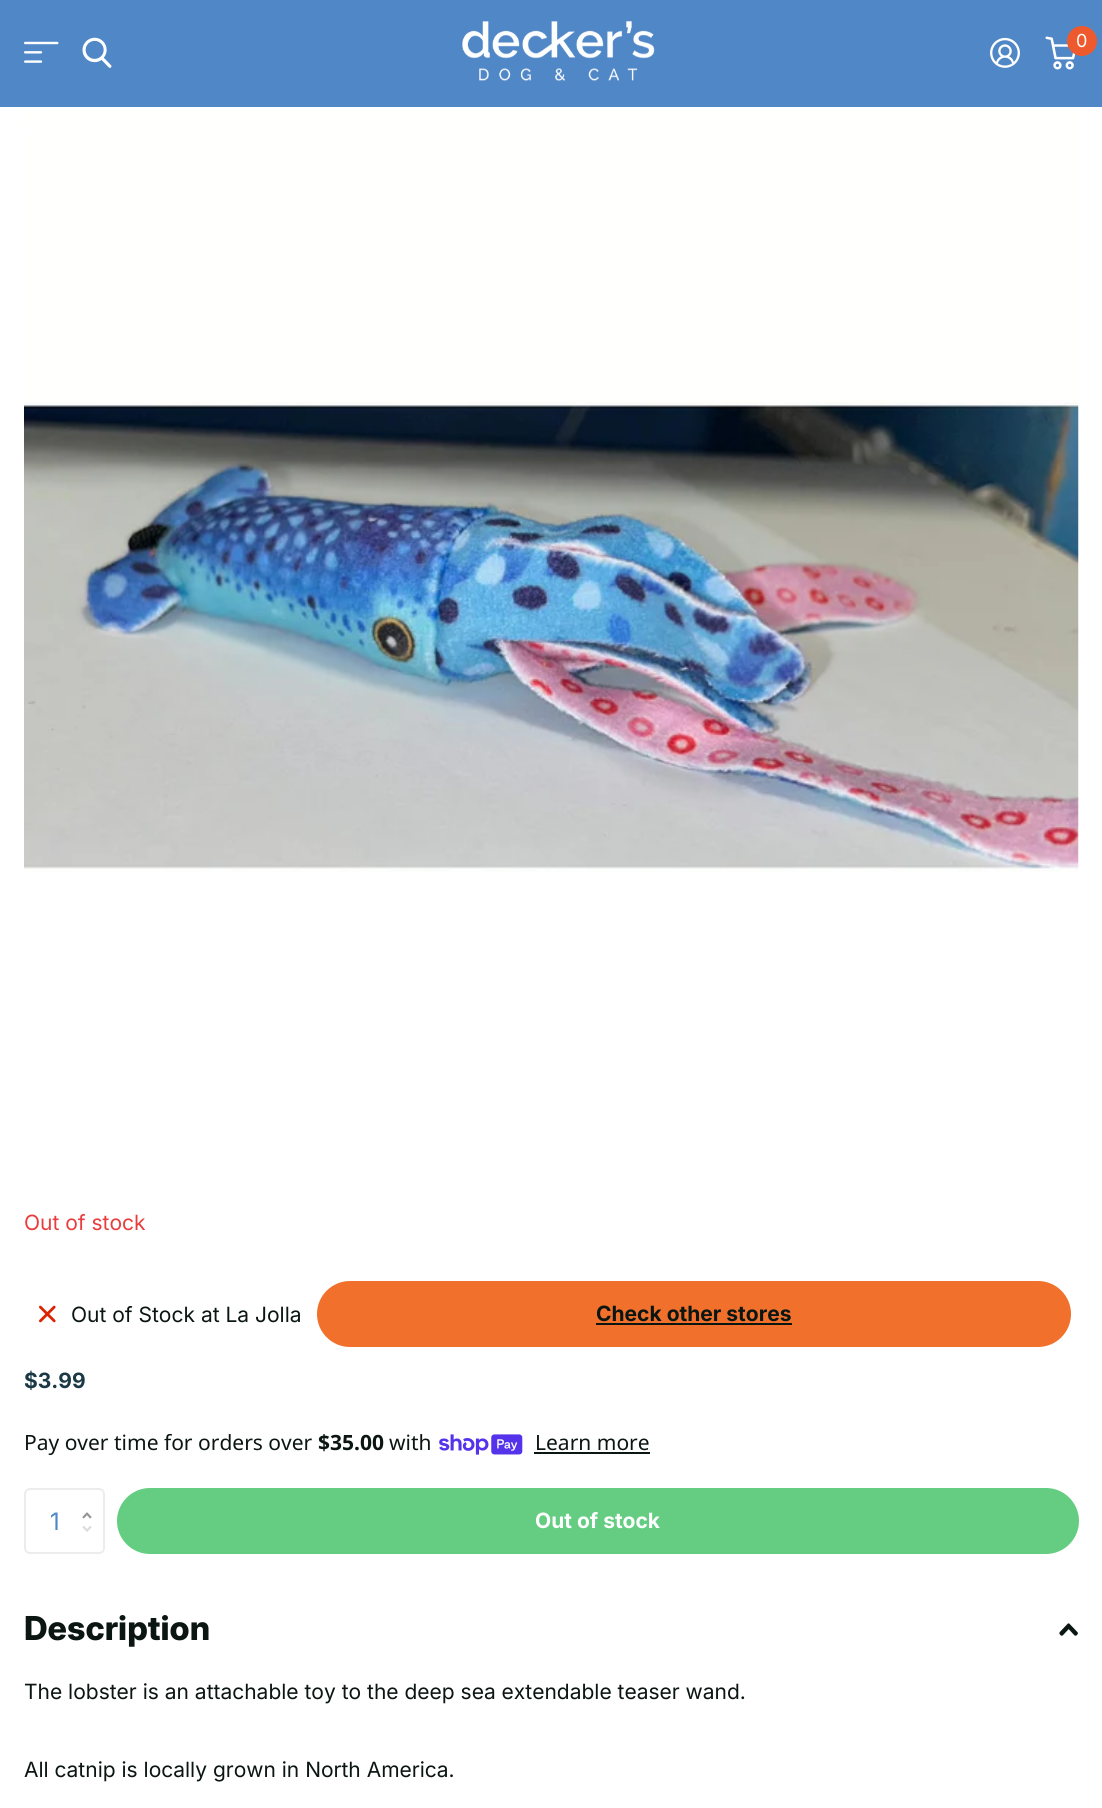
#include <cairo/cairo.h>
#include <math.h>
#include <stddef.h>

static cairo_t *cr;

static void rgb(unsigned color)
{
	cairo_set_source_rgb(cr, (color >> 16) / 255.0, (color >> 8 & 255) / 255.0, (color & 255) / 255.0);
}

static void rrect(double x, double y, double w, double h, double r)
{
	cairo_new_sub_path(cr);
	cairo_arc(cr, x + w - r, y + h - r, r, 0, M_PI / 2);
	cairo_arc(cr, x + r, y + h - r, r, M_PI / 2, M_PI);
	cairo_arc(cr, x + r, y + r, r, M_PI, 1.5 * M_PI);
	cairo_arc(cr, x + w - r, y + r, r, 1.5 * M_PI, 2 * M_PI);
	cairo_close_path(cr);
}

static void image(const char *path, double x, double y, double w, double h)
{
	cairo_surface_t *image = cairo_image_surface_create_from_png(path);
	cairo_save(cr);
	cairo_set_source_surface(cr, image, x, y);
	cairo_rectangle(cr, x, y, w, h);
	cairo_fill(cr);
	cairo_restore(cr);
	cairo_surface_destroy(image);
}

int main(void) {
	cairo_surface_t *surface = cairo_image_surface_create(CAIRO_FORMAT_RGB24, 1102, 1808);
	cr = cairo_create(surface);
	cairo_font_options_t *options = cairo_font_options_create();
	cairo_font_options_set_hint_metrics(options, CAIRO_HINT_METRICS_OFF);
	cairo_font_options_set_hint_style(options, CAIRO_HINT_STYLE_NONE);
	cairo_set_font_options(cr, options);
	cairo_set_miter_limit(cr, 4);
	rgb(0xffffff);
	cairo_paint(cr);
	rgb(0x5087c7);
	cairo_rectangle(cr, 0, 0, 1102, 107);
	cairo_fill(cr);
	image("img/1.png", 24, 41, 35, 22);
	image("img/2.png", 82, 37, 30, 31);
	image("img/3.png", 462, 21, 193, 60);
	image("img/4.png", 990, 37, 30, 31);
	image("img/5.png", 1045, 36, 31, 34);
	rgb(0xee5a2d);
	cairo_arc(cr, 1082, 41, 15, 0, 2 * M_PI);
	cairo_fill(cr);
	image("img/6.png", 24, 110, 1055, 763);
	image("img/7.png", 39, 1305, 17, 18);
	rgb(0xf0702c);
	rrect(317, 1281, 754, 66, 33);
	cairo_fill(cr);
	rgb(0x0b1613);
	cairo_rectangle(cr, 596, 1323, 196, 2);
	cairo_fill(cr);
	image("img/8.png", 439, 1434, 84, 21);
	cairo_rectangle(cr, 534, 1452, 116, 2);
	cairo_fill(cr);
	rrect(25, 1489, 79, 64, 5);
	rgb(0xebecec);
	cairo_stroke(cr);
	image("img/9.png", 82, 1512, 10, 7);
	image("img/10.png", 82, 1526, 10, 6);
	rgb(0x64cd82);
	rrect(117, 1488, 962, 66, 33);
	cairo_fill(cr);
	image("img/11.png", 1059, 1623, 19, 13);
	cairo_select_font_face(cr, "Inter", CAIRO_FONT_SLANT_NORMAL, CAIRO_FONT_WEIGHT_NORMAL);
	cairo_set_font_size(cr, 18);
	rgb(0xffffff);
	cairo_move_to(cr, 1076, 47);
	cairo_show_text(cr, "0");
	cairo_set_font_size(cr, 21);
	rgb(0xe93d3d);
	cairo_move_to(cr, 24, 1230);
	cairo_show_text(cr, "Out of stock");
	rgb(0x0b1613);
	cairo_move_to(cr, 71, 1322);
	cairo_show_text(cr, "Out of Stock at La Jolla");
	cairo_select_font_face(cr, "Inter", CAIRO_FONT_SLANT_NORMAL, CAIRO_FONT_WEIGHT_BOLD);
	cairo_move_to(cr, 596, 1321);
	cairo_show_text(cr, "Check other stores");
	rgb(0x1a3945);
	cairo_move_to(cr, 24, 1388);
	cairo_show_text(cr, "$3.99");
	cairo_select_font_face(cr, "Noto Sans", CAIRO_FONT_SLANT_NORMAL, CAIRO_FONT_WEIGHT_NORMAL);
	rgb(0x0b1613);
	cairo_move_to(cr, 24, 1450);
	cairo_show_text(cr, "Pay over time for orders over");
	cairo_select_font_face(cr, "Noto Sans", CAIRO_FONT_SLANT_NORMAL, CAIRO_FONT_WEIGHT_BOLD);
	cairo_move_to(cr, 318, 1450);
	cairo_show_text(cr, "$35.00");
	cairo_select_font_face(cr, "Noto Sans", CAIRO_FONT_SLANT_NORMAL, CAIRO_FONT_WEIGHT_NORMAL);
	cairo_move_to(cr, 389, 1450);
	cairo_show_text(cr, "with");
	cairo_move_to(cr, 535, 1450);
	cairo_show_text(cr, "Learn more");
	cairo_select_font_face(cr, "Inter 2", CAIRO_FONT_SLANT_NORMAL, CAIRO_FONT_WEIGHT_NORMAL);
	cairo_set_font_size(cr, 24);
	rgb(0x5087c7);
	cairo_move_to(cr, 50, 1530);
	cairo_show_text(cr, "1");
	cairo_select_font_face(cr, "Inter", CAIRO_FONT_SLANT_NORMAL, CAIRO_FONT_WEIGHT_BOLD);
	cairo_set_font_size(cr, 21);
	rgb(0xffffff);
	cairo_move_to(cr, 535, 1528);
	cairo_show_text(cr, "Out of stock");
	cairo_select_font_face(cr, "Inter ExtraBold", CAIRO_FONT_SLANT_NORMAL, CAIRO_FONT_WEIGHT_NORMAL);
	cairo_set_font_size(cr, 33);
	rgb(0x0b1613);
	cairo_move_to(cr, 24, 1640);
	cairo_show_text(cr, "Description");
	cairo_select_font_face(cr, "Inter", CAIRO_FONT_SLANT_NORMAL, CAIRO_FONT_WEIGHT_NORMAL);
	cairo_set_font_size(cr, 21);
	cairo_move_to(cr, 24, 1699);
	cairo_show_text(cr, "The lobster is an attachable toy to the deep sea extendable teaser wand.");
	cairo_move_to(cr, 24, 1777);
	cairo_show_text(cr, "All catnip is locally grown in North America.");
	cairo_surface_write_to_png(surface, "page.png");
	cairo_font_options_destroy(options);
	cairo_destroy(cr);
	cairo_surface_destroy(surface);
	return 0;
}
